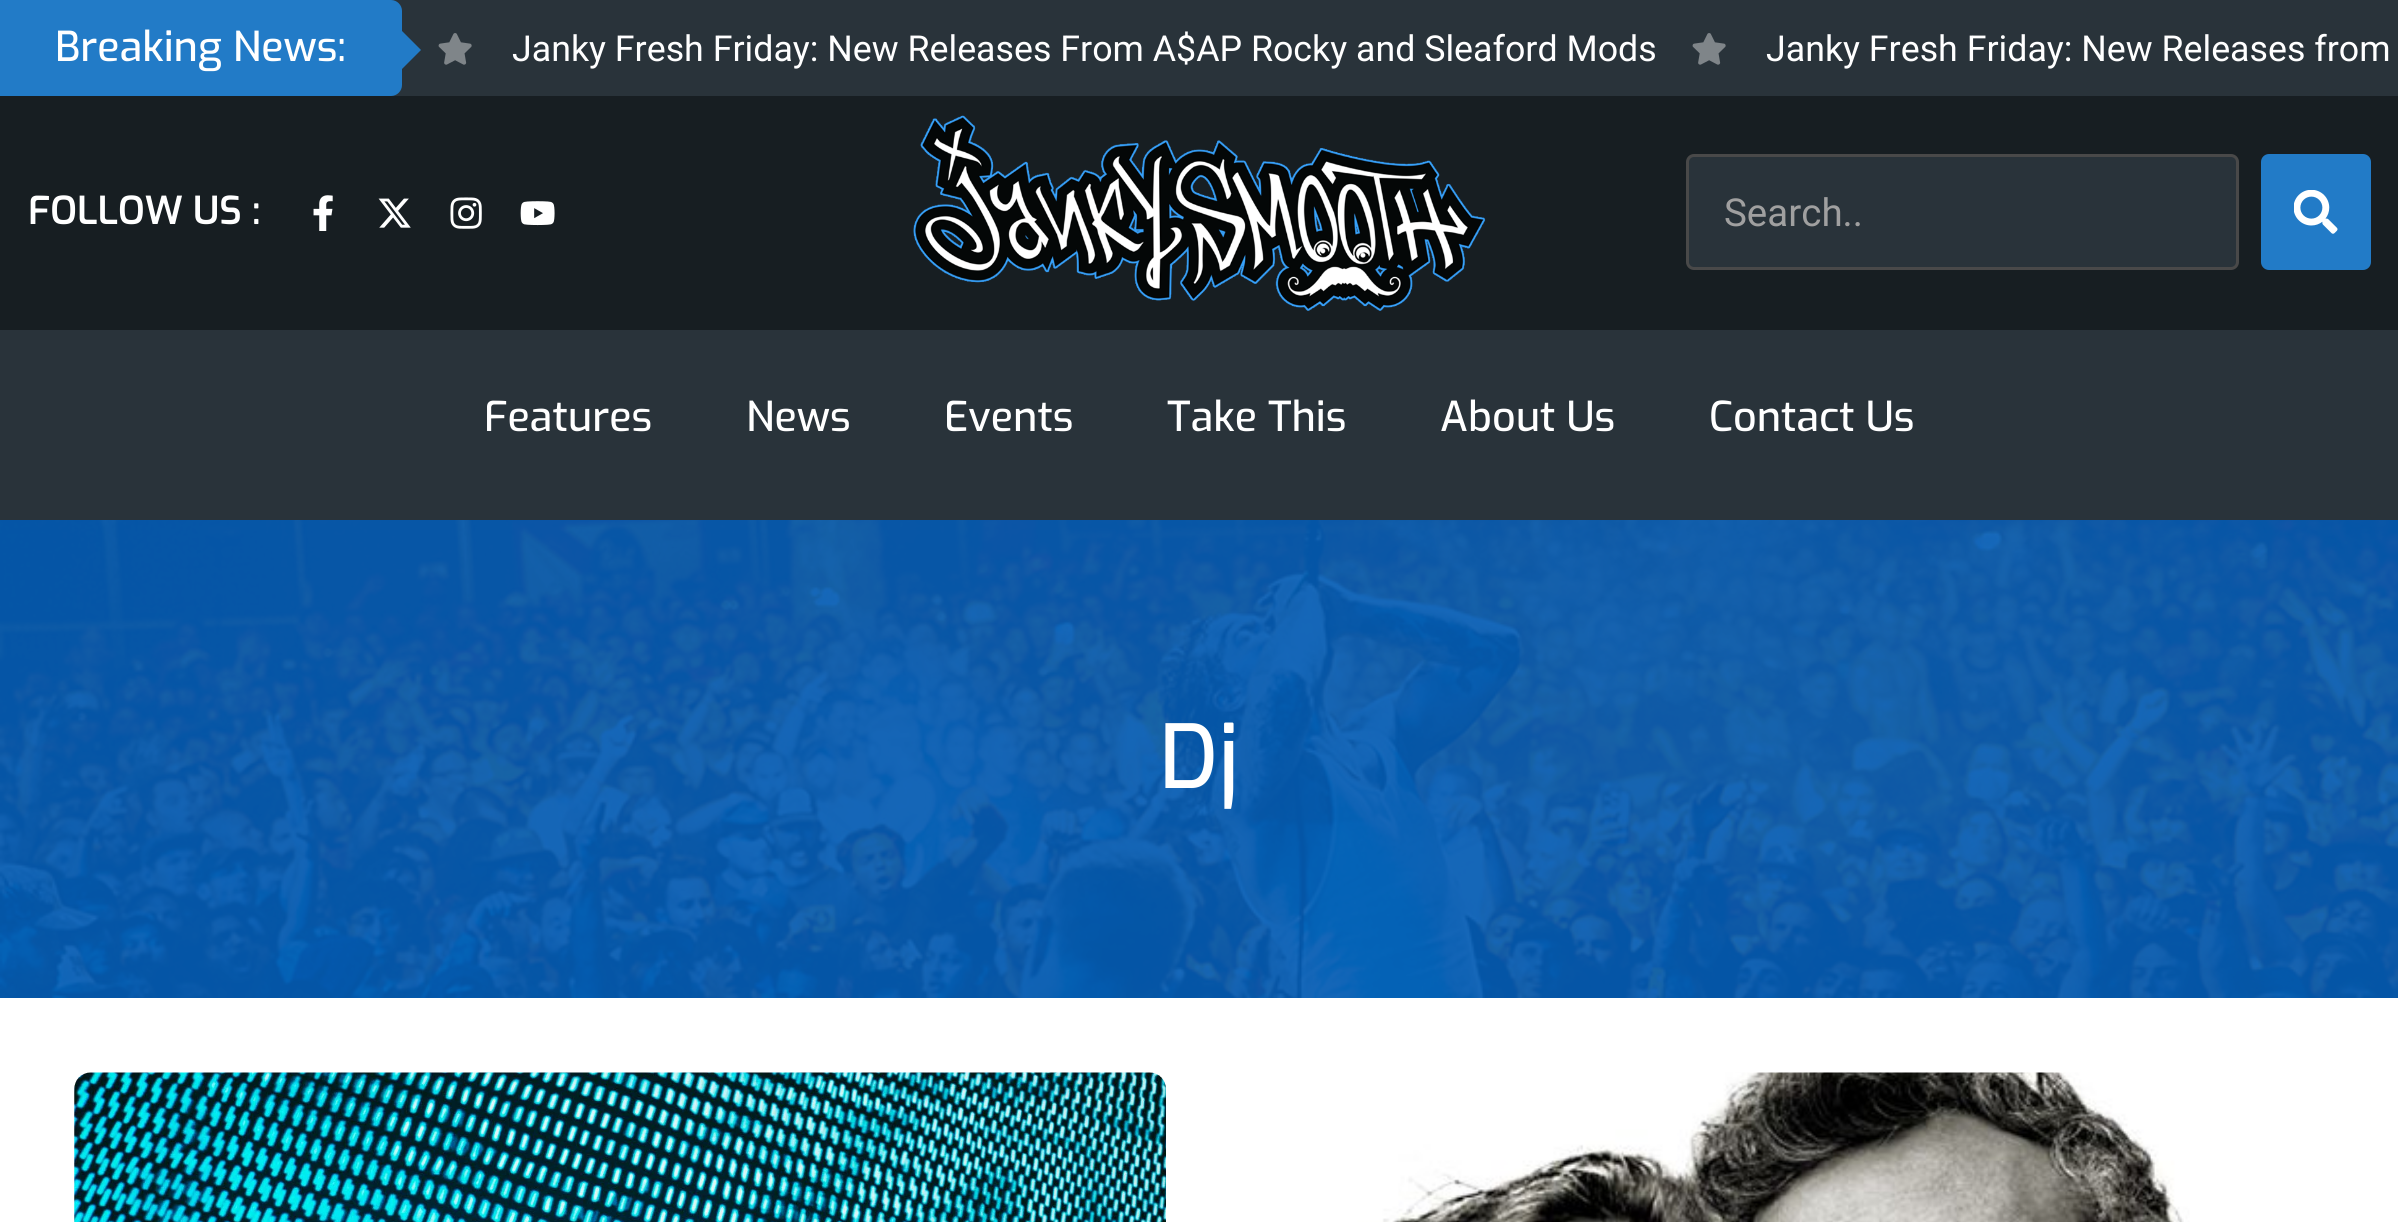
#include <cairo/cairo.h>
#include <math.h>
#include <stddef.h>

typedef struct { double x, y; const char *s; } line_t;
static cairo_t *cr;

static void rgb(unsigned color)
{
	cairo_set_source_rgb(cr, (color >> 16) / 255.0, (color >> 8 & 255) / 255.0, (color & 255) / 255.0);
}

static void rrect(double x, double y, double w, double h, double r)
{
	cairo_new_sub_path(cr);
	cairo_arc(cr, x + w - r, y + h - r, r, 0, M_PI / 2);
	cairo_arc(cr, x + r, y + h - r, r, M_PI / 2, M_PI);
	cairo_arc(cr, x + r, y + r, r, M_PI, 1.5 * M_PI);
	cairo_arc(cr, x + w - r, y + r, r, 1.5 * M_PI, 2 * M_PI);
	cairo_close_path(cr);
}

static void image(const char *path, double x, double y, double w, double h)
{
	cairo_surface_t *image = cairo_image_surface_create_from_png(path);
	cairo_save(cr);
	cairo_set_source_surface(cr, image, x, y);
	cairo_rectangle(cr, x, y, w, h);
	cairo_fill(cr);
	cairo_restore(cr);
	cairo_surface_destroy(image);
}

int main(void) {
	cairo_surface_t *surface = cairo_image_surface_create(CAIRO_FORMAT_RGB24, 2398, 1222);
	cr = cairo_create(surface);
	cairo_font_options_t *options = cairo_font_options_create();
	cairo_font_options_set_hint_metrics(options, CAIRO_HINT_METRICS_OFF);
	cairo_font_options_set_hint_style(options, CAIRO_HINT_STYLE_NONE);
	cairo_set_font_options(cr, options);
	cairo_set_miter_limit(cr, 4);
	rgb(0xffffff);
	cairo_paint(cr);
	rgb(0x29333a);
	cairo_rectangle(cr, 391, 0, 2007, 96);
	cairo_fill(cr);
	rgb(0x227bc7);
	cairo_new_path(cr);
	cairo_move_to(cr, 0, 0);
	cairo_line_to(cr, 391, 0);
	cairo_curve_to(cr, 397, 0, 402, 5, 402, 11);
	cairo_line_to(cr, 402, 85);
	cairo_curve_to(cr, 402, 91, 397, 96, 391, 96);
	cairo_line_to(cr, 0, 96);
	cairo_close_path(cr);
	cairo_fill(cr);
	cairo_new_path(cr);
	cairo_move_to(cr, 399, 72);
	cairo_line_to(cr, 399, 28);
	cairo_line_to(cr, 421, 50);
	cairo_close_path(cr);
	cairo_fill(cr);
	image("img/1.png", 438, 33, 34, 32);
	image("img/1.png", 1692, 33, 34, 32);
	rgb(0x171e22);
	cairo_rectangle(cr, 0, 96, 2398, 234);
	cairo_fill(cr);
	image("img/2.png", 313, 195, 20, 36);
	image("img/3.png", 378, 198, 33, 30);
	image("img/4.png", 450, 197, 32, 32);
	image("img/5.png", 520, 201, 35, 25);
	image("img/6.png", 913, 115, 573, 196);
	rgb(0x29333a);
	rrect(1687.5, 155.5, 550, 113, 6.5);
	cairo_fill_preserve(cr);
	rgb(0x494949);
	cairo_set_line_width(cr, 3);
	cairo_stroke(cr);
	rgb(0x227bc7);
	rrect(2261, 154, 110, 116, 8);
	cairo_fill(cr);
	image("img/7.png", 2294, 190, 44, 44);
	rgb(0x29333a);
	cairo_rectangle(cr, 0, 330, 2398, 190);
	cairo_fill(cr);
	image("img/8.png", 0, 520, 2398, 478);
	image("img/9.png", 74, 1072, 1092, 150);
	image("img/10.png", 1232, 1072, 1092, 150);
	cairo_select_font_face(cr, "Exo Medium", CAIRO_FONT_SLANT_NORMAL, CAIRO_FONT_WEIGHT_NORMAL);
	cairo_set_font_size(cr, 41.25);
	rgb(0xffffff);
	cairo_move_to(cr, 55, 61);
	cairo_show_text(cr, "Breaking News:");
	cairo_select_font_face(cr, "Roboto", CAIRO_FONT_SLANT_NORMAL, CAIRO_FONT_WEIGHT_NORMAL);
	cairo_set_font_size(cr, 35.75);
	cairo_move_to(cr, 512, 61);
	cairo_show_text(cr, "Janky Fresh Friday: New Releases From A$AP Rocky and Sleaford Mods");
	cairo_move_to(cr, 1766, 61);
	cairo_show_text(cr, "Janky Fresh Friday: New Releases from");
	cairo_select_font_face(cr, "Exo SemiBold", CAIRO_FONT_SLANT_NORMAL, CAIRO_FONT_WEIGHT_NORMAL);
	cairo_set_font_size(cr, 38.5);
	cairo_move_to(cr, 28, 224);
	cairo_show_text(cr, "FOLLOW US :");
	cairo_select_font_face(cr, "Roboto", CAIRO_FONT_SLANT_NORMAL, CAIRO_FONT_WEIGHT_NORMAL);
	rgb(0xa0a0a0);
	cairo_move_to(cr, 1724, 226);
	cairo_show_text(cr, "Search..");
	cairo_select_font_face(cr, "Exo Medium", CAIRO_FONT_SLANT_NORMAL, CAIRO_FONT_WEIGHT_NORMAL);
	cairo_set_font_size(cr, 41.25);
	rgb(0xffffff);
	{
		static const line_t items[] = {
			{484, 431, "Features"},
			{746, 431, "News"},
			{944, 431, "Events"},
			{1167, 431, "Take This"},
			{1440, 431, "About Us"},
			{1709, 431, "Contact Us"},
		};
		for (size_t i = 0; i < sizeof items / sizeof *items; i++) {
			cairo_move_to(cr, items[i].x, items[i].y);
			cairo_show_text(cr, items[i].s);
		}
	}
	cairo_set_font_size(cr, 88);
	cairo_move_to(cr, 1159, 788);
	cairo_show_text(cr, "Dj");
	cairo_surface_write_to_png(surface, "page.png");
	cairo_font_options_destroy(options);
	cairo_destroy(cr);
	cairo_surface_destroy(surface);
	return 0;
}
